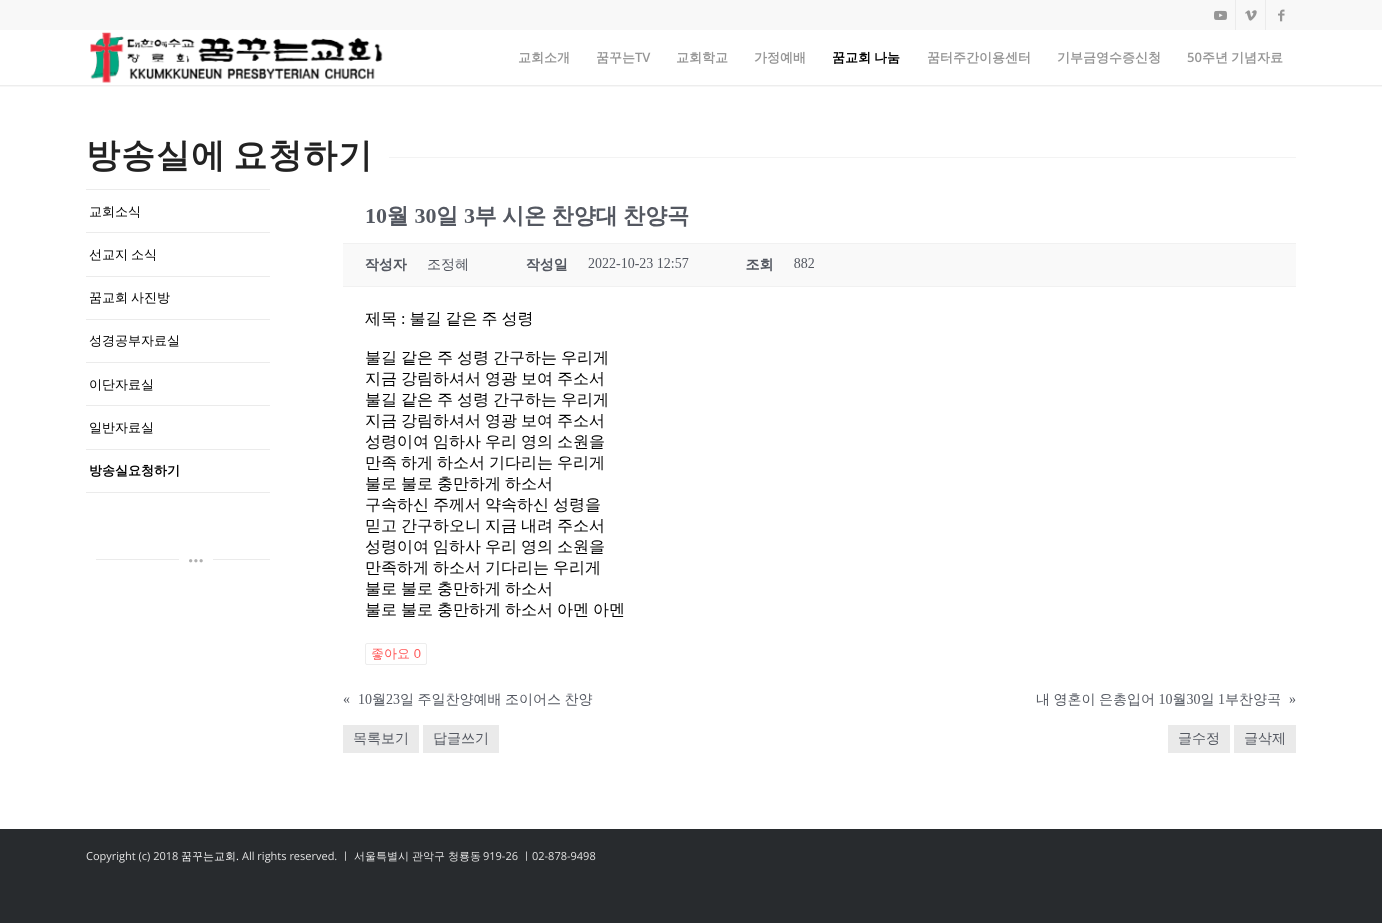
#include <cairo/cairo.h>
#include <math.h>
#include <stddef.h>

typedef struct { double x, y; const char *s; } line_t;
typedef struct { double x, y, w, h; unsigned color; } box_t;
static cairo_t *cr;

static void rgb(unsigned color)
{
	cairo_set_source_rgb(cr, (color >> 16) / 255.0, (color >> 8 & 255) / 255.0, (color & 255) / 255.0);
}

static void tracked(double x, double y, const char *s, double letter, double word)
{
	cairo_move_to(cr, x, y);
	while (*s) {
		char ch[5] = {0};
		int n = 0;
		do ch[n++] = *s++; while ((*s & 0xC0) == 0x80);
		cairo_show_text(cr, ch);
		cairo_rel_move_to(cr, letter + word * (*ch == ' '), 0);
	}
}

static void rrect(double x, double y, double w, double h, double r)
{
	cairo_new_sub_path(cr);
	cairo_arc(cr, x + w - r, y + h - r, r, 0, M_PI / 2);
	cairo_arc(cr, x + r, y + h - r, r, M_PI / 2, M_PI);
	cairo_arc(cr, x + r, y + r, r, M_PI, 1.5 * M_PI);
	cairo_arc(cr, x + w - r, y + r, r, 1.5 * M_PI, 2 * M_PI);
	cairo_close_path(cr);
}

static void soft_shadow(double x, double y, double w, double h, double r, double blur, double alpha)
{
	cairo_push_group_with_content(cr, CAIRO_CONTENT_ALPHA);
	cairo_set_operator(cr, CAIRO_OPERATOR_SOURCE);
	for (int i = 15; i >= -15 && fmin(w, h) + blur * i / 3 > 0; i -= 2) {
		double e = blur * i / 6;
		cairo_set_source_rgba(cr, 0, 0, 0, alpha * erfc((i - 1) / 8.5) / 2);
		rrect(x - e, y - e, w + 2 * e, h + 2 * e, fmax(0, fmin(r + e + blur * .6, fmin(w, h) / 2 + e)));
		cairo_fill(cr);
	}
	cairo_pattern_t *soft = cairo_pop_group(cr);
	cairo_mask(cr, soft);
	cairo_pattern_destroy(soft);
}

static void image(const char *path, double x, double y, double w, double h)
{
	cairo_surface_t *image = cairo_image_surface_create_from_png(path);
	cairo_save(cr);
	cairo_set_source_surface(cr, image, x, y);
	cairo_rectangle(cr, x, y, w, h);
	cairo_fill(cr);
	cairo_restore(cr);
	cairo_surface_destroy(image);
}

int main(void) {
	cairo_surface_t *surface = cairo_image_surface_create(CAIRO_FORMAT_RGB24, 1382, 923);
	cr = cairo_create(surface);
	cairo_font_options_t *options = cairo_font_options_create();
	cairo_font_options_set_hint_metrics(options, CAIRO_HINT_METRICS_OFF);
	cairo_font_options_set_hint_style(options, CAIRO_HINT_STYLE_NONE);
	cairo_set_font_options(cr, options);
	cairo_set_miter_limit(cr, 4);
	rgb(0x282b2e);
	cairo_paint(cr);
	rgb(0xffffff);
	cairo_rectangle(cr, 0, 30, 1382, 799);
	cairo_fill(cr);
	cairo_save(cr);
	cairo_rectangle(cr, 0, 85, 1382, 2);
	cairo_clip(cr);
	rgb(0x000000);
	soft_shadow(-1, -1, 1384, 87, 0, 1, 0.1);
	cairo_restore(cr);
	rgb(0xf8f8f8);
	cairo_rectangle(cr, 0, 0, 1382, 30);
	cairo_fill(cr);
	rgb(0xebebeb);
	cairo_rectangle(cr, 1235, 0, 1, 30);
	cairo_fill(cr);
	image("img/1.png", 1214, 10, 13, 10);
	cairo_rectangle(cr, 1265, 0, 1, 30);
	cairo_fill(cr);
	image("img/2.png", 1245, 10, 12, 11);
	image("img/3.png", 1278, 9, 7, 13);
	image("img/4.png", 90, 32, 293, 51);
	{
		static const box_t items[] = {
			{389, 157, 907, 1, 0xf3f3f3},
			{86, 189, 184, 1, 0xebebeb},
			{86, 232, 184, 1, 0xebebeb},
			{86, 276, 184, 1, 0xebebeb},
			{86, 319, 184, 1, 0xebebeb},
			{86, 362, 184, 1, 0xebebeb},
			{86, 405, 184, 1, 0xebebeb},
			{86, 449, 184, 1, 0xebebeb},
			{86, 492, 184, 1, 0xebebeb},
			{96, 559, 83, 1, 0xebebeb},
		};
		for (size_t i = 0; i < sizeof items / sizeof *items; i++) {
			rgb(items[i].color);
			cairo_rectangle(cr, items[i].x, items[i].y, items[i].w, items[i].h);
			cairo_fill(cr);
		}
	}
	image("img/5.png", 189, 559, 14, 4);
	cairo_rectangle(cr, 213, 559, 57, 1);
	cairo_fill(cr);
	image("img/6.png", 343, 206, 953, 547);
	cairo_select_font_face(cr, "WenQuanYi Zen Hei", CAIRO_FONT_SLANT_NORMAL, CAIRO_FONT_WEIGHT_BOLD);
	cairo_set_font_size(cr, 13);
	rgb(0x969696);
	cairo_move_to(cr, 518, 62);
	cairo_show_text(cr, "교회소개");
	cairo_move_to(cr, 596, 62);
	cairo_show_text(cr, "꿈꾸는");
	cairo_select_font_face(cr, "Open Sans SemiBold", CAIRO_FONT_SLANT_NORMAL, CAIRO_FONT_WEIGHT_NORMAL);
	cairo_move_to(cr, 635, 62);
	cairo_show_text(cr, "TV");
	cairo_select_font_face(cr, "WenQuanYi Zen Hei", CAIRO_FONT_SLANT_NORMAL, CAIRO_FONT_WEIGHT_BOLD);
	cairo_move_to(cr, 676, 62);
	cairo_show_text(cr, "교회학교");
	cairo_move_to(cr, 754, 62);
	cairo_show_text(cr, "가정예배");
	rgb(0x000000);
	tracked(832, 62, "꿈교회 나눔", 0, -1);
	rgb(0x969696);
	cairo_move_to(cr, 927, 62);
	cairo_show_text(cr, "꿈터주간이용센터");
	cairo_move_to(cr, 1057, 62);
	cairo_show_text(cr, "기부금영수증신청");
	cairo_select_font_face(cr, "Open Sans SemiBold", CAIRO_FONT_SLANT_NORMAL, CAIRO_FONT_WEIGHT_NORMAL);
	cairo_move_to(cr, 1187, 62);
	cairo_show_text(cr, "50");
	cairo_select_font_face(cr, "WenQuanYi Zen Hei", CAIRO_FONT_SLANT_NORMAL, CAIRO_FONT_WEIGHT_BOLD);
	tracked(1202, 62, "주년 기념자료", 0, -1);
	cairo_set_font_size(cr, 34);
	rgb(0x222222);
	tracked(86, 167, "방송실에 요청하기", 1, -4);
	cairo_select_font_face(cr, "WenQuanYi Zen Hei Medium", CAIRO_FONT_SLANT_NORMAL, CAIRO_FONT_WEIGHT_NORMAL);
	cairo_set_font_size(cr, 13);
	rgb(0x000000);
	cairo_move_to(cr, 89, 216);
	cairo_show_text(cr, "교회소식");
	tracked(89, 259, "선교지 소식", 0, -1);
	tracked(89, 302, "꿈교회 사진방", 0, -1);
	{
		static const line_t items[] = {
			{89, 345, "성경공부자료실"},
			{89, 389, "이단자료실"},
			{89, 432, "일반자료실"},
		};
		for (size_t i = 0; i < sizeof items / sizeof *items; i++) {
			cairo_move_to(cr, items[i].x, items[i].y);
			cairo_show_text(cr, items[i].s);
		}
	}
	cairo_select_font_face(cr, "WenQuanYi Zen Hei", CAIRO_FONT_SLANT_NORMAL, CAIRO_FONT_WEIGHT_BOLD);
	cairo_move_to(cr, 89, 475);
	cairo_show_text(cr, "방송실요청하기");
	cairo_select_font_face(cr, "Open Sans", CAIRO_FONT_SLANT_NORMAL, CAIRO_FONT_WEIGHT_NORMAL);
	cairo_set_font_size(cr, 11);
	rgb(0xe8e8e8);
	cairo_move_to(cr, 86, 860);
	cairo_show_text(cr, "Copyright (c) 2018");
	cairo_select_font_face(cr, "WenQuanYi Zen Hei Medium", CAIRO_FONT_SLANT_NORMAL, CAIRO_FONT_WEIGHT_NORMAL);
	rgb(0xffffff);
	cairo_move_to(cr, 181, 860);
	cairo_show_text(cr, "꿈꾸는교회");
	cairo_select_font_face(cr, "Open Sans", CAIRO_FONT_SLANT_NORMAL, CAIRO_FONT_WEIGHT_NORMAL);
	cairo_move_to(cr, 236, 860);
	cairo_show_text(cr, ".");
	rgb(0xe8e8e8);
	cairo_move_to(cr, 242, 860);
	cairo_show_text(cr, "All rights reserved.");
	cairo_select_font_face(cr, "WenQuanYi Zen Hei Medium", CAIRO_FONT_SLANT_NORMAL, CAIRO_FONT_WEIGHT_NORMAL);
	{
		static const line_t items[] = {
			{340, 860, "ㅣ"},
			{354, 860, "서울특별시"},
			{412, 860, "관악구"},
			{448, 860, "청룡동"},
		};
		for (size_t i = 0; i < sizeof items / sizeof *items; i++) {
			cairo_move_to(cr, items[i].x, items[i].y);
			cairo_show_text(cr, items[i].s);
		}
	}
	cairo_select_font_face(cr, "Open Sans", CAIRO_FONT_SLANT_NORMAL, CAIRO_FONT_WEIGHT_NORMAL);
	cairo_move_to(cr, 483, 860);
	cairo_show_text(cr, "919-26");
	cairo_select_font_face(cr, "WenQuanYi Zen Hei Medium", CAIRO_FONT_SLANT_NORMAL, CAIRO_FONT_WEIGHT_NORMAL);
	cairo_move_to(cr, 521, 860);
	cairo_show_text(cr, "ㅣ");
	cairo_select_font_face(cr, "Open Sans", CAIRO_FONT_SLANT_NORMAL, CAIRO_FONT_WEIGHT_NORMAL);
	cairo_move_to(cr, 532, 860);
	cairo_show_text(cr, "02-878-9498");
	cairo_surface_write_to_png(surface, "page.png");
	cairo_font_options_destroy(options);
	cairo_destroy(cr);
	cairo_surface_destroy(surface);
	return 0;
}
